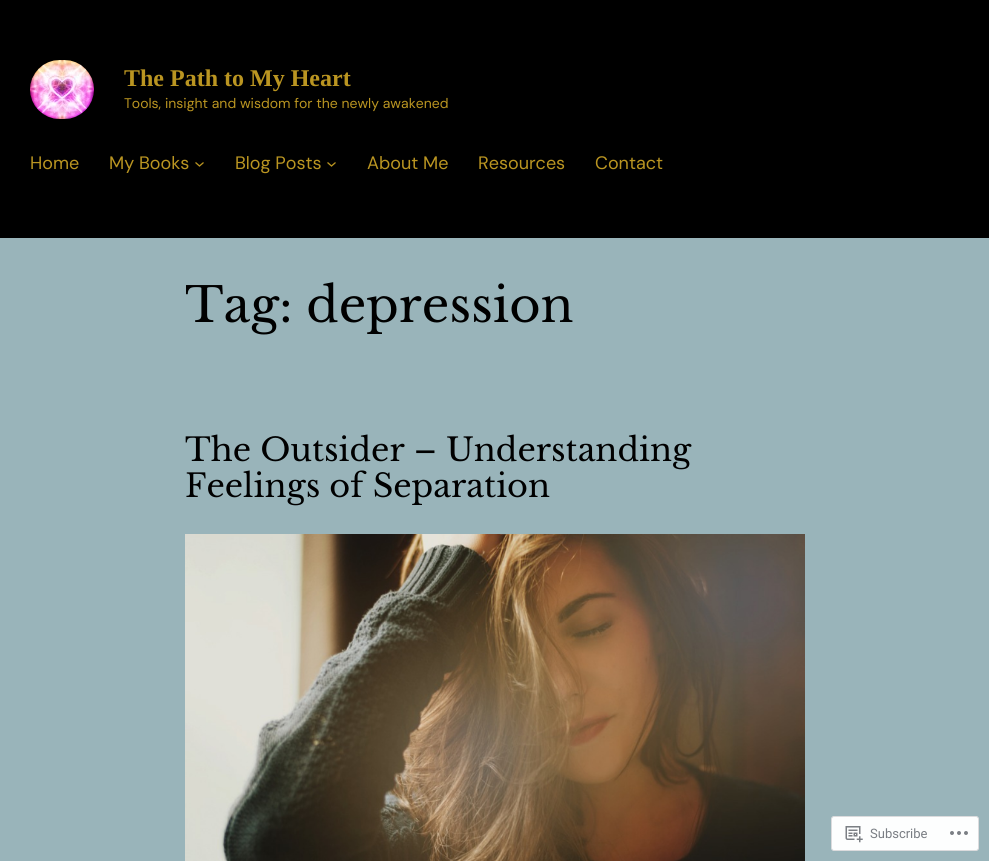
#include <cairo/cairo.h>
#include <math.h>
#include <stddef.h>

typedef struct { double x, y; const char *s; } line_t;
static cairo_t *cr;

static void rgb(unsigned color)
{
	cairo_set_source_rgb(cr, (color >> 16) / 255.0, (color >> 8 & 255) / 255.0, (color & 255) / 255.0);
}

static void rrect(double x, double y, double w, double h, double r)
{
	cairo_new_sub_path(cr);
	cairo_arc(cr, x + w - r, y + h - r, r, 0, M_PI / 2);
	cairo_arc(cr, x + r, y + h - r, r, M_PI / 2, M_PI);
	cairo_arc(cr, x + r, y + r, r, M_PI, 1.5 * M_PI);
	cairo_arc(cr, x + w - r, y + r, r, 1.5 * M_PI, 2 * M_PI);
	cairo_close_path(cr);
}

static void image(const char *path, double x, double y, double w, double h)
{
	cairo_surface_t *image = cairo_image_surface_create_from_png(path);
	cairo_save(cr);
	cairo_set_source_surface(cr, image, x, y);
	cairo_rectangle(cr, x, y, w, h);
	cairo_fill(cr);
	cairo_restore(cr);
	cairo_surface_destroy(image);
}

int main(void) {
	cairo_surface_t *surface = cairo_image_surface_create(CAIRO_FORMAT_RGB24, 989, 861);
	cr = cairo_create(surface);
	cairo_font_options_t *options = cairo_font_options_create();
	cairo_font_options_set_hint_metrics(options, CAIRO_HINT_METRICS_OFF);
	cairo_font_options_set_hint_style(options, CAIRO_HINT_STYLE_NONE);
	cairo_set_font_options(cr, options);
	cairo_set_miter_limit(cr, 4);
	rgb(0x99b4ba);
	cairo_paint(cr);
	rgb(0x000000);
	cairo_rectangle(cr, 0, 0, 989, 238);
	cairo_fill(cr);
	image("img/1.png", 30, 60, 64, 59);
	cairo_new_path(cr);
	cairo_move_to(cr, 195.5, 162.5);
	cairo_line_to(cr, 199.5, 166);
	cairo_line_to(cr, 203.5, 162.5);
	rgb(0xba9521);
	cairo_set_line_width(cr, 1.3);
	cairo_stroke(cr);
	cairo_new_path(cr);
	cairo_move_to(cr, 327.5, 162.5);
	cairo_line_to(cr, 331.5, 166);
	cairo_line_to(cr, 335.5, 162.5);
	cairo_stroke(cr);
	image("img/2.png", 185, 534, 620, 327);
	rgb(0xfdfefe);
	rrect(831.5, 816.5, 147, 34, 2.5);
	cairo_fill_preserve(cr);
	rgb(0xdbdbdd);
	cairo_set_line_width(cr, 1);
	cairo_stroke(cr);
	image("img/3.png", 845, 826, 18, 17);
	image("img/4.png", 950, 831, 18, 4);
	cairo_select_font_face(cr, "Liberation Serif", CAIRO_FONT_SLANT_NORMAL, CAIRO_FONT_WEIGHT_BOLD);
	cairo_set_font_size(cr, 24);
	rgb(0xba9521);
	cairo_move_to(cr, 124, 86);
	cairo_show_text(cr, "The Path to My Heart");
	cairo_select_font_face(cr, "DM Sans", CAIRO_FONT_SLANT_NORMAL, CAIRO_FONT_WEIGHT_NORMAL);
	cairo_set_font_size(cr, 14);
	cairo_move_to(cr, 124, 108);
	cairo_show_text(cr, "Tools, insight and wisdom for the newly awakened");
	cairo_set_font_size(cr, 18);
	{
		static const line_t items[] = {
			{30, 169, "Home"},
			{109, 169, "My Books"},
			{235, 169, "Blog Posts"},
			{367, 169, "About Me"},
			{478, 169, "Resources"},
			{595, 169, "Contact"},
		};
		for (size_t i = 0; i < sizeof items / sizeof *items; i++) {
			cairo_move_to(cr, items[i].x, items[i].y);
			cairo_show_text(cr, items[i].s);
		}
	}
	cairo_select_font_face(cr, "Libre Baskerville", CAIRO_FONT_SLANT_NORMAL, CAIRO_FONT_WEIGHT_NORMAL);
	cairo_set_font_size(cr, 48);
	rgb(0x000000);
	cairo_move_to(cr, 185, 322);
	cairo_show_text(cr, "Tag: depression");
	cairo_set_font_size(cr, 32);
	cairo_move_to(cr, 185, 461);
	cairo_show_text(cr, "The Outsider – Understanding");
	cairo_move_to(cr, 185, 497);
	cairo_show_text(cr, "Feelings of Separation");
	cairo_select_font_face(cr, "Roboto", CAIRO_FONT_SLANT_NORMAL, CAIRO_FONT_WEIGHT_NORMAL);
	cairo_set_font_size(cr, 13);
	rgb(0x797d83);
	cairo_move_to(cr, 870, 838);
	cairo_show_text(cr, "Subscribe");
	cairo_surface_write_to_png(surface, "page.png");
	cairo_font_options_destroy(options);
	cairo_destroy(cr);
	cairo_surface_destroy(surface);
	return 0;
}
